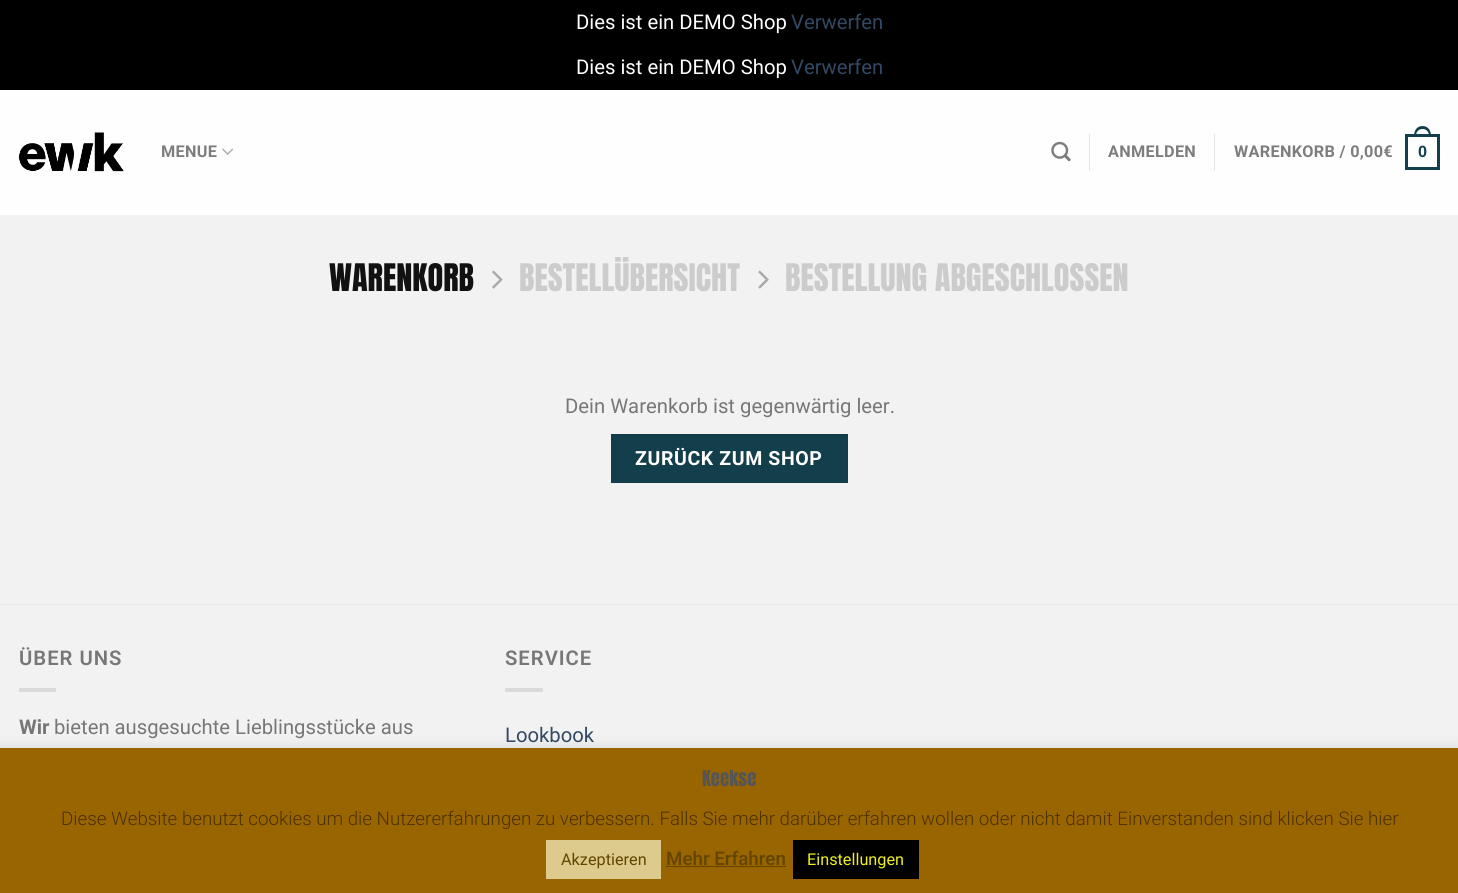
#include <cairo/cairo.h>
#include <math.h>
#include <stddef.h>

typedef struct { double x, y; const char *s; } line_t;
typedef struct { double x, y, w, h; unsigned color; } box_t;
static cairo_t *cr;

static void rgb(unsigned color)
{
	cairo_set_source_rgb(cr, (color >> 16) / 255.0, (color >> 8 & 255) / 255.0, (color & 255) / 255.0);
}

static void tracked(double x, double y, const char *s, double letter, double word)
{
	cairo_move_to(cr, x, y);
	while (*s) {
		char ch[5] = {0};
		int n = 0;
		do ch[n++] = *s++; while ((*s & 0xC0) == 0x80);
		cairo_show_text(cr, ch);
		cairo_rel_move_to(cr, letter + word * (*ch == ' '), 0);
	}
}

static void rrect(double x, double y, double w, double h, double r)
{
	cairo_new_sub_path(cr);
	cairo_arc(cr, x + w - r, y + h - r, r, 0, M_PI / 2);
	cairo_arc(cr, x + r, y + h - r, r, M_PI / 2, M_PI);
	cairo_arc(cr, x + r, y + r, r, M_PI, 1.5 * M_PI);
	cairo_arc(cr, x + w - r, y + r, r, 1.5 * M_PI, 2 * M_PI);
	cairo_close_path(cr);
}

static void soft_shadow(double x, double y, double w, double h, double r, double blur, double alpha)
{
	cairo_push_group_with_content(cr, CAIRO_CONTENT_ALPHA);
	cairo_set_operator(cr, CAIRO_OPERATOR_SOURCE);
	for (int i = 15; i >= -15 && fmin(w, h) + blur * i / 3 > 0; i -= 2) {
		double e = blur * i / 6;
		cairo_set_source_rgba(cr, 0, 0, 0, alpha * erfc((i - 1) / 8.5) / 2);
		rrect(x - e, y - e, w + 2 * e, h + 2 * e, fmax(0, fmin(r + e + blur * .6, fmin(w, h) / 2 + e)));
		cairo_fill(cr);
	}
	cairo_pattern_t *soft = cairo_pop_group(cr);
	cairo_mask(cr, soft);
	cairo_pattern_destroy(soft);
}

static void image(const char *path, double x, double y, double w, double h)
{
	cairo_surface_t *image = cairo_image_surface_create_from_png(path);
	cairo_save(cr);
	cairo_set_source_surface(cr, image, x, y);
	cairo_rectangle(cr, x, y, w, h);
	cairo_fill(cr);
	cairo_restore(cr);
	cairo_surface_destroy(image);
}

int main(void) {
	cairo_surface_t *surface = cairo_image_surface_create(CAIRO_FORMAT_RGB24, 1458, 893);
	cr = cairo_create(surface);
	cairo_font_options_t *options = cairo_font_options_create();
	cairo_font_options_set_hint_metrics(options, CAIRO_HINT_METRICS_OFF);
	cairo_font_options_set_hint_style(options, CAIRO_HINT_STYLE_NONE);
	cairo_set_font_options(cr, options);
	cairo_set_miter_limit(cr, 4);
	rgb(0xf2f2f2);
	cairo_paint(cr);
	rgb(0x000000);
	cairo_rectangle(cr, 0, 0, 1458, 90);
	cairo_fill(cr);
	rgb(0xfefefe);
	cairo_rectangle(cr, 0, 90, 1458, 125);
	cairo_fill(cr);
	image("img/1.png", 18, 132, 106, 40);
	image("img/2.png", 222, 148, 12, 7);
	image("img/3.png", 1051, 141, 20, 21);
	rgb(0xe5e5e5);
	cairo_rectangle(cr, 1089, 134, 1, 37);
	cairo_fill(cr);
	cairo_rectangle(cr, 1214, 134, 1, 37);
	cairo_fill(cr);
	cairo_rectangle(cr, 1406.5, 135.5, 32, 33);
	rgb(0x133f4d);
	cairo_set_line_width(cr, 3);
	cairo_stroke(cr);
	cairo_set_fill_rule(cr, CAIRO_FILL_RULE_EVEN_ODD);
	cairo_new_path(cr);
	cairo_move_to(cr, 1422.5, 126);
	cairo_curve_to(cr, 1428.5, 126, 1431, 131, 1431, 136);
	cairo_line_to(cr, 1414, 136);
	cairo_curve_to(cr, 1414, 131, 1416.5, 126, 1422.5, 126);
	cairo_close_path(cr);
	cairo_move_to(cr, 1422.5, 129);
	cairo_curve_to(cr, 1427, 129, 1429, 132.5, 1429, 136);
	cairo_line_to(cr, 1416, 136);
	cairo_curve_to(cr, 1416, 132.5, 1418, 129, 1422.5, 129);
	cairo_close_path(cr);
	cairo_fill(cr);
	image("img/4.png", 492, 270, 11, 19);
	image("img/5.png", 758, 270, 11, 19);
	cairo_rectangle(cr, 611.5, 434.5, 236, 48);
	cairo_fill_preserve(cr);
	rgb(0x123c49);
	cairo_set_line_width(cr, 1);
	cairo_stroke(cr);
	{
		static const box_t items[] = {
			{0, 604, 1458, 1, 0xe6e6e6},
			{19, 688, 37, 4, 0xdadada},
			{505, 688, 38, 4, 0xdadada},
		};
		for (size_t i = 0; i < sizeof items / sizeof *items; i++) {
			rgb(items[i].color);
			cairo_rectangle(cr, items[i].x, items[i].y, items[i].w, items[i].h);
			cairo_fill(cr);
		}
	}
	rgb(0xacabab);
	soft_shadow(0, 746, 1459, 147, 0, 6, 0.3);
	{
		static const box_t items[] = {
			{0, 748, 1458, 145, 0x996500},
			{546, 840, 115, 39, 0xddcb8d},
			{666, 866, 120, 1, 0x634500},
			{793, 840, 126, 39, 0x000000},
		};
		for (size_t i = 0; i < sizeof items / sizeof *items; i++) {
			rgb(items[i].color);
			cairo_rectangle(cr, items[i].x, items[i].y, items[i].w, items[i].h);
			cairo_fill(cr);
		}
	}
	cairo_select_font_face(cr, "Roboto", CAIRO_FONT_SLANT_NORMAL, CAIRO_FONT_WEIGHT_NORMAL);
	cairo_set_font_size(cr, 20.25);
	rgb(0xffffff);
	cairo_move_to(cr, 576, 29);
	cairo_show_text(cr, "Dies ist ein DEMO Shop");
	rgb(0x334862);
	cairo_move_to(cr, 791, 29);
	cairo_show_text(cr, "Verwerfen");
	rgb(0xffffff);
	cairo_move_to(cr, 576, 74);
	cairo_show_text(cr, "Dies ist ein DEMO Shop");
	rgb(0x334862);
	cairo_move_to(cr, 791, 74);
	cairo_show_text(cr, "Verwerfen");
	cairo_select_font_face(cr, "Roboto", CAIRO_FONT_SLANT_NORMAL, CAIRO_FONT_WEIGHT_BOLD);
	cairo_set_font_size(cr, 16.25);
	rgb(0x7d7d7d);
	{
		static const line_t items[] = {
			{161, 157, "MENUE"},
			{1108, 157, "ANMELDEN"},
			{1234, 157, "WARENKORB / 0,00€"},
		};
		for (size_t i = 0; i < sizeof items / sizeof *items; i++) {
			tracked(items[i].x, items[i].y, items[i].s, 0.3, 0);
		}
	}
	cairo_select_font_face(cr, "Liberation Sans", CAIRO_FONT_SLANT_NORMAL, CAIRO_FONT_WEIGHT_BOLD);
	rgb(0x133f4d);
	tracked(1418, 157, "0", 0.3, 0);
	cairo_select_font_face(cr, "Anton", CAIRO_FONT_SLANT_NORMAL, CAIRO_FONT_WEIGHT_NORMAL);
	cairo_set_font_size(cr, 32.25);
	rgb(0x111111);
	cairo_move_to(cr, 329, 291);
	cairo_show_text(cr, "WARENKORB");
	rgb(0xcccccc);
	cairo_move_to(cr, 519, 291);
	cairo_show_text(cr, "BESTELLÜBERSICHT");
	cairo_move_to(cr, 785, 291);
	cairo_show_text(cr, "BESTELLUNG ABGESCHLOSSEN");
	cairo_select_font_face(cr, "Roboto", CAIRO_FONT_SLANT_NORMAL, CAIRO_FONT_WEIGHT_NORMAL);
	cairo_set_font_size(cr, 20.25);
	rgb(0x777777);
	cairo_move_to(cr, 565, 413);
	cairo_show_text(cr, "Dein Warenkorb ist gegenwärtig leer.");
	cairo_select_font_face(cr, "Roboto", CAIRO_FONT_SLANT_NORMAL, CAIRO_FONT_WEIGHT_BOLD);
	cairo_set_font_size(cr, 19.5);
	rgb(0xffffff);
	tracked(635, 465, "ZURÜCK ZUM SHOP", 0.6, 0);
	cairo_select_font_face(cr, "Roboto SemiBold", CAIRO_FONT_SLANT_NORMAL, CAIRO_FONT_WEIGHT_NORMAL);
	cairo_set_font_size(cr, 20.25);
	rgb(0x777777);
	tracked(19, 665, "ÜBER UNS", 1, 0);
	cairo_select_font_face(cr, "Roboto", CAIRO_FONT_SLANT_NORMAL, CAIRO_FONT_WEIGHT_BOLD);
	cairo_move_to(cr, 19, 734);
	cairo_show_text(cr, "Wir");
	cairo_select_font_face(cr, "Roboto", CAIRO_FONT_SLANT_NORMAL, CAIRO_FONT_WEIGHT_NORMAL);
	cairo_move_to(cr, 54, 734);
	cairo_show_text(cr, "bieten ausgesuchte Lieblingsstücke aus");
	cairo_select_font_face(cr, "Roboto SemiBold", CAIRO_FONT_SLANT_NORMAL, CAIRO_FONT_WEIGHT_NORMAL);
	tracked(505, 665, "SERVICE", 1, 0);
	cairo_select_font_face(cr, "Roboto", CAIRO_FONT_SLANT_NORMAL, CAIRO_FONT_WEIGHT_NORMAL);
	rgb(0x334862);
	cairo_move_to(cr, 505, 742);
	cairo_show_text(cr, "Lookbook");
	cairo_select_font_face(cr, "Anton", CAIRO_FONT_SLANT_NORMAL, CAIRO_FONT_WEIGHT_NORMAL);
	cairo_set_font_size(cr, 18.75);
	rgb(0x555555);
	cairo_move_to(cr, 702, 786);
	cairo_show_text(cr, "Keekse");
	cairo_select_font_face(cr, "Roboto Light", CAIRO_FONT_SLANT_NORMAL, CAIRO_FONT_WEIGHT_NORMAL);
	rgb(0x4c3000);
	cairo_move_to(cr, 61, 825);
	cairo_show_text(cr, "Diese Website benutzt cookies um die Nutzererfahrungen zu verbessern. Falls Sie mehr darüber erfahren wollen oder nicht damit Einverstanden sind klicken Sie hier");
	cairo_select_font_face(cr, "Roboto", CAIRO_FONT_SLANT_NORMAL, CAIRO_FONT_WEIGHT_NORMAL);
	cairo_set_font_size(cr, 16.25);
	rgb(0x634500);
	cairo_move_to(cr, 561, 865);
	cairo_show_text(cr, "Akzeptieren");
	cairo_select_font_face(cr, "Roboto Medium", CAIRO_FONT_SLANT_NORMAL, CAIRO_FONT_WEIGHT_NORMAL);
	cairo_set_font_size(cr, 18.75);
	cairo_move_to(cr, 666, 865);
	cairo_show_text(cr, "Mehr Erfahren");
	cairo_select_font_face(cr, "Roboto", CAIRO_FONT_SLANT_NORMAL, CAIRO_FONT_WEIGHT_NORMAL);
	cairo_set_font_size(cr, 16.25);
	rgb(0xeeee22);
	cairo_move_to(cr, 807, 865);
	cairo_show_text(cr, "Einstellungen");
	cairo_surface_write_to_png(surface, "page.png");
	cairo_font_options_destroy(options);
	cairo_destroy(cr);
	cairo_surface_destroy(surface);
	return 0;
}
